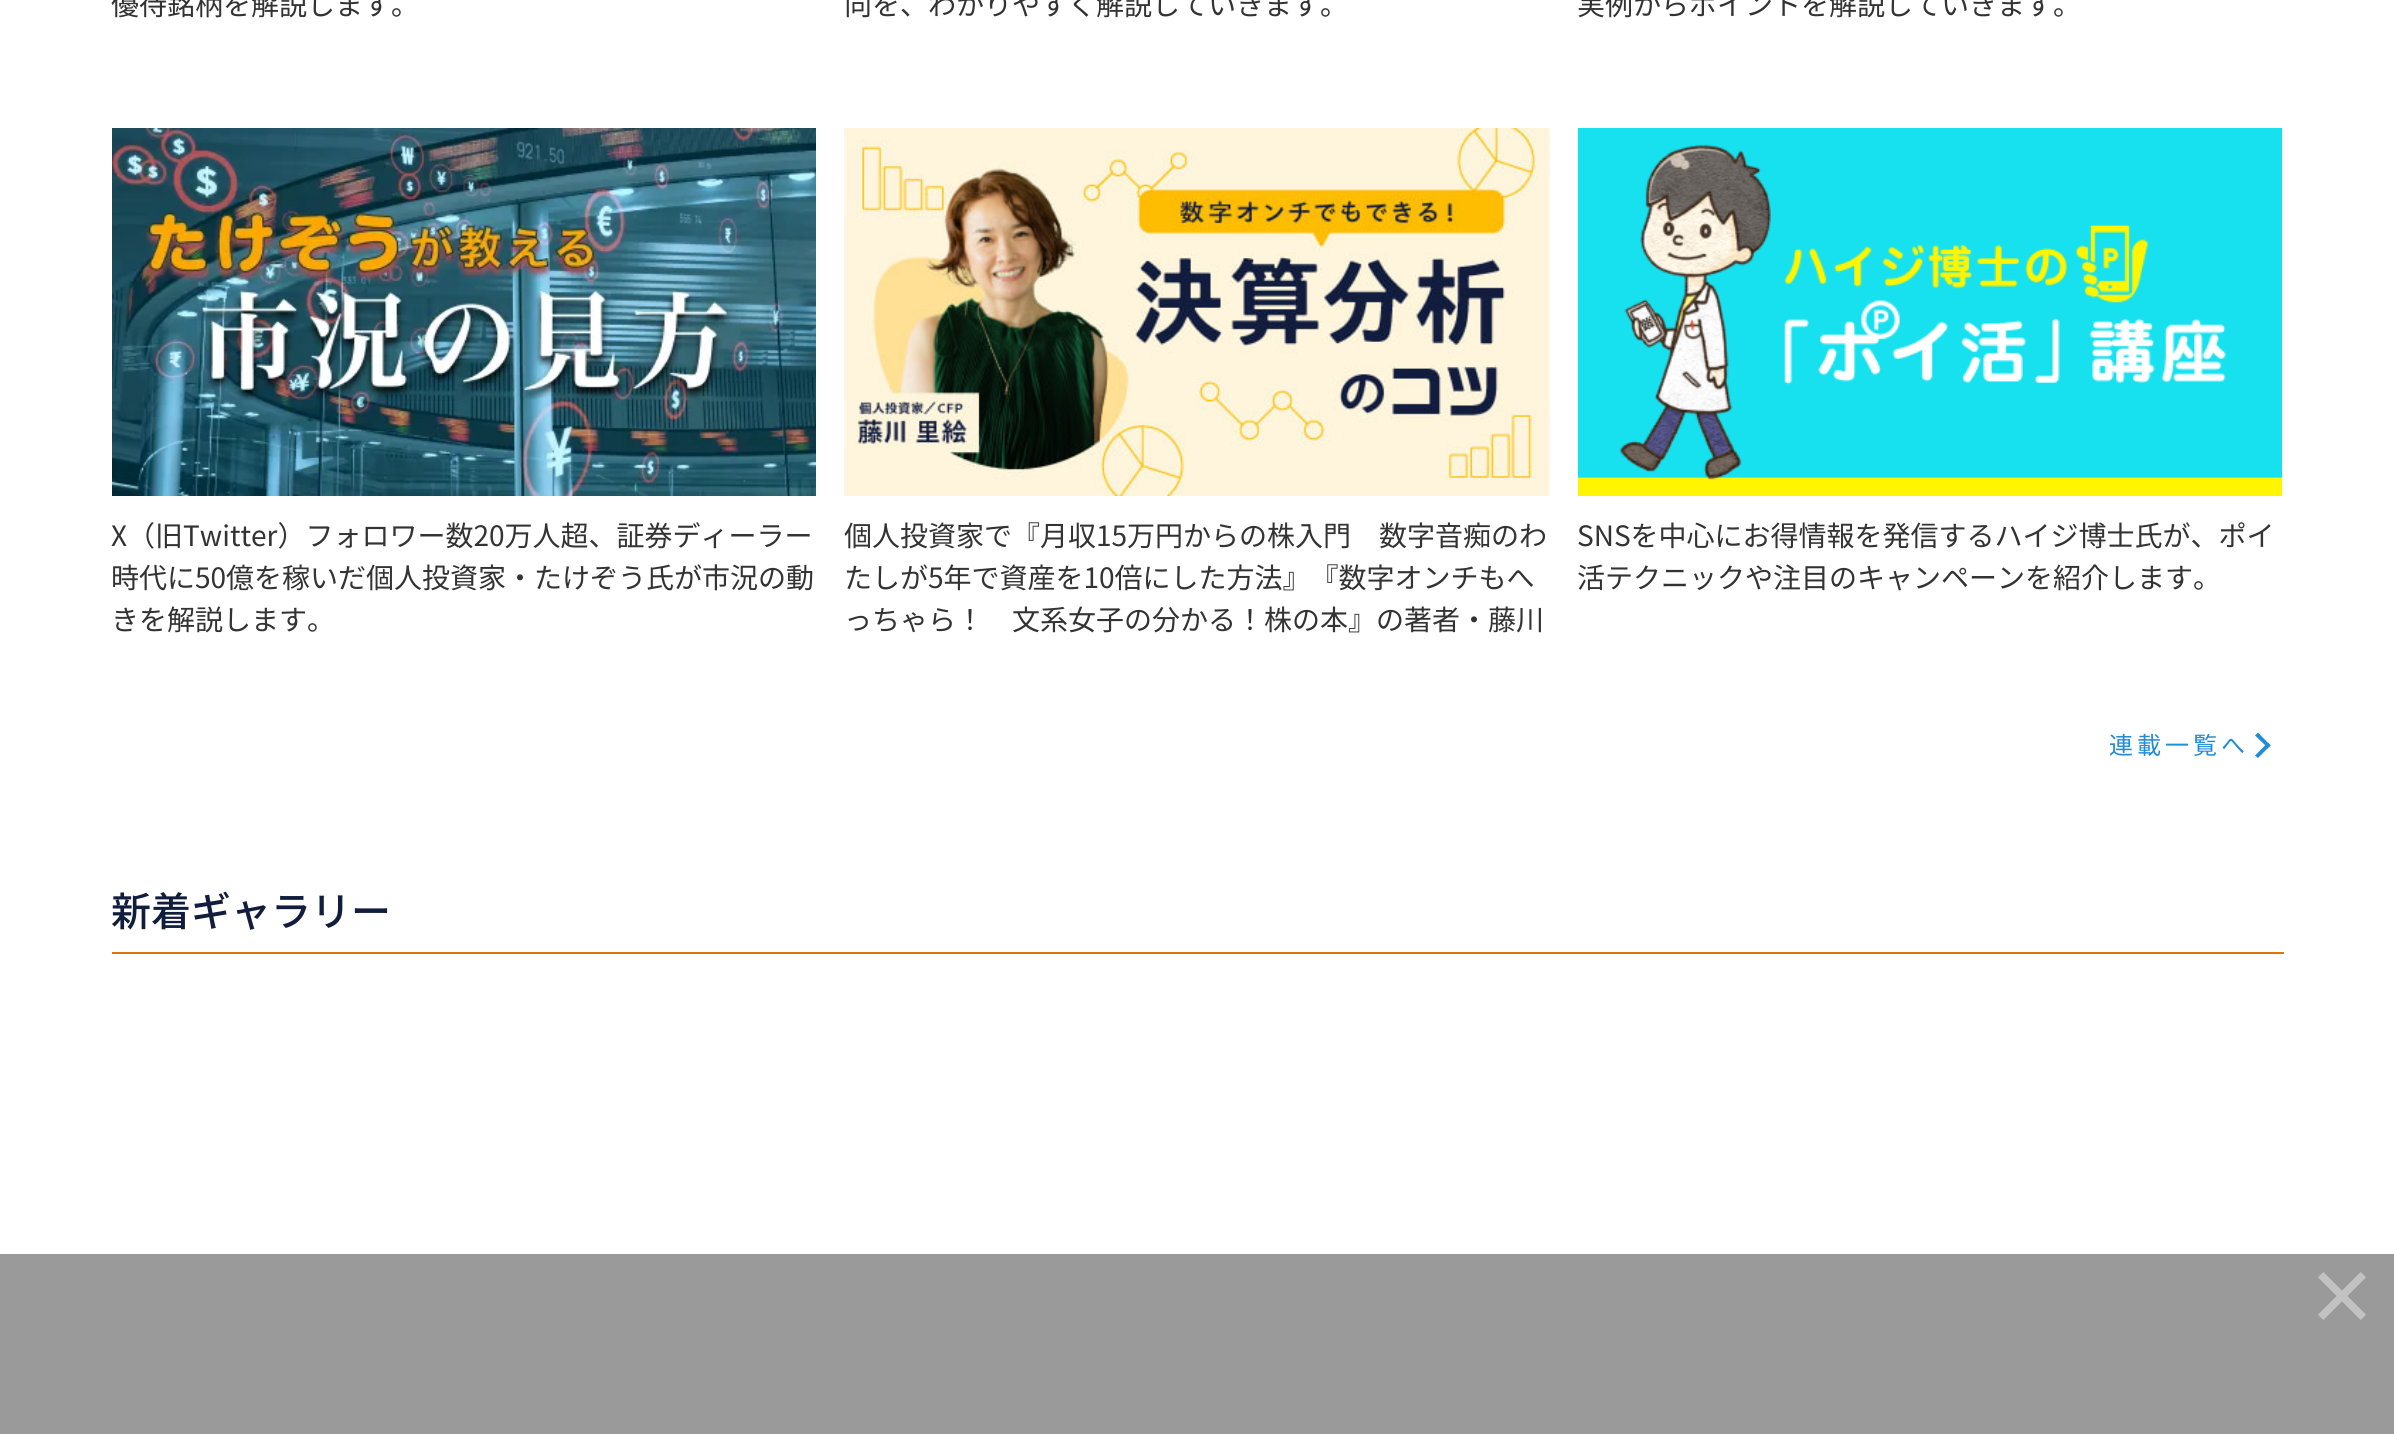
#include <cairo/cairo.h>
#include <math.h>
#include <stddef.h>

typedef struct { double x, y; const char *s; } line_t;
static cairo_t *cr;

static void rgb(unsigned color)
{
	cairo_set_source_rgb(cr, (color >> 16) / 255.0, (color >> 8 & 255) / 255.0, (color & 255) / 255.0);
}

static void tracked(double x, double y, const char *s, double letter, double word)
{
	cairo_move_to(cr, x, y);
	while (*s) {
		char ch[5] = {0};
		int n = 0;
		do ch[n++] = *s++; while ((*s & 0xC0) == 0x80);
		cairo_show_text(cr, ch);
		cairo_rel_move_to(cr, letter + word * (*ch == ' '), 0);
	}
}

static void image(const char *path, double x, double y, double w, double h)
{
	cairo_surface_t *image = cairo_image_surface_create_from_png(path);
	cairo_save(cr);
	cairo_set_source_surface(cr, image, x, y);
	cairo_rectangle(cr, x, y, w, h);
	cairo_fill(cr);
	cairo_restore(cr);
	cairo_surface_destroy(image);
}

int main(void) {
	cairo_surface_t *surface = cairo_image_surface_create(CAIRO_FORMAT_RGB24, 2394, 1434);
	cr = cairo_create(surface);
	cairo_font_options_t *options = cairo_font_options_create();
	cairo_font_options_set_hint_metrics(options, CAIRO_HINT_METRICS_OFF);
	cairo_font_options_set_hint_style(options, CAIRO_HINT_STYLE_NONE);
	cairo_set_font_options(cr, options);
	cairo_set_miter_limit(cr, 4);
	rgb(0xffffff);
	cairo_paint(cr);
	image("img/1.png", 112, 128, 704, 368);
	image("img/2.png", 844, 128, 706, 368);
	image("img/3.png", 1578, 128, 704, 368);
	rgb(0x208bd6);
	cairo_new_path(cr);
	cairo_move_to(cr, 2258, 732.5);
	cairo_line_to(cr, 2270.5, 745.5);
	cairo_line_to(cr, 2268, 748);
	cairo_line_to(cr, 2255, 735.5);
	cairo_close_path(cr);
	cairo_fill(cr);
	cairo_new_path(cr);
	cairo_move_to(cr, 2268, 742.5);
	cairo_line_to(cr, 2270.5, 745.5);
	cairo_line_to(cr, 2258, 758);
	cairo_line_to(cr, 2255, 755.5);
	cairo_close_path(cr);
	cairo_fill(cr);
	rgb(0xe2740e);
	cairo_rectangle(cr, 112, 952, 2172, 2);
	cairo_fill(cr);
	rgb(0x9a9a9a);
	cairo_rectangle(cr, 0, 1254, 2394, 180);
	cairo_fill(cr);
	image("img/4.png", 2318, 1272, 48, 48);
	cairo_select_font_face(cr, "Noto Sans JP", CAIRO_FONT_SLANT_NORMAL, CAIRO_FONT_WEIGHT_NORMAL);
	cairo_set_font_size(cr, 28);
	rgb(0x333333);
	{
		static const line_t items[] = {
			{111, 15, "優待銘柄を解説します。"},
			{844, 15, "向を、わかりやすく解説していきます。"},
			{1577, 15, "実例からポイントを解説していきます。"},
			{111, 546, "X（旧Twitter）フォロワー数20万人超、証券ディーラー"},
			{111, 588, "時代に50億を稼いだ個人投資家・たけぞう氏が市況の動"},
			{111, 630, "きを解説します。"},
			{844, 546, "個人投資家で『月収15万円からの株入門　数字音痴のわ"},
			{844, 588, "たしが5年で資産を10倍にした方法』『数字オンチもへ"},
			{844, 630, "っちゃら！　文系女子の分かる！株の本』の著者・藤川"},
			{1577, 546, "SNSを中心にお得情報を発信するハイジ博士氏が、ポイ"},
			{1577, 588, "活テクニックや注目のキャンペーンを紹介します。"},
		};
		for (size_t i = 0; i < sizeof items / sizeof *items; i++) {
			cairo_move_to(cr, items[i].x, items[i].y);
			cairo_show_text(cr, items[i].s);
		}
	}
	cairo_set_font_size(cr, 24);
	rgb(0x208bd6);
	tracked(2109, 754, "連載一覧へ", 4, 0);
	cairo_select_font_face(cr, "Noto Sans JP Medium", CAIRO_FONT_SLANT_NORMAL, CAIRO_FONT_WEIGHT_NORMAL);
	cairo_set_font_size(cr, 40);
	rgb(0x121d3e);
	cairo_move_to(cr, 111, 926);
	cairo_show_text(cr, "新着ギャラリー");
	cairo_surface_write_to_png(surface, "page.png");
	cairo_font_options_destroy(options);
	cairo_destroy(cr);
	cairo_surface_destroy(surface);
	return 0;
}
